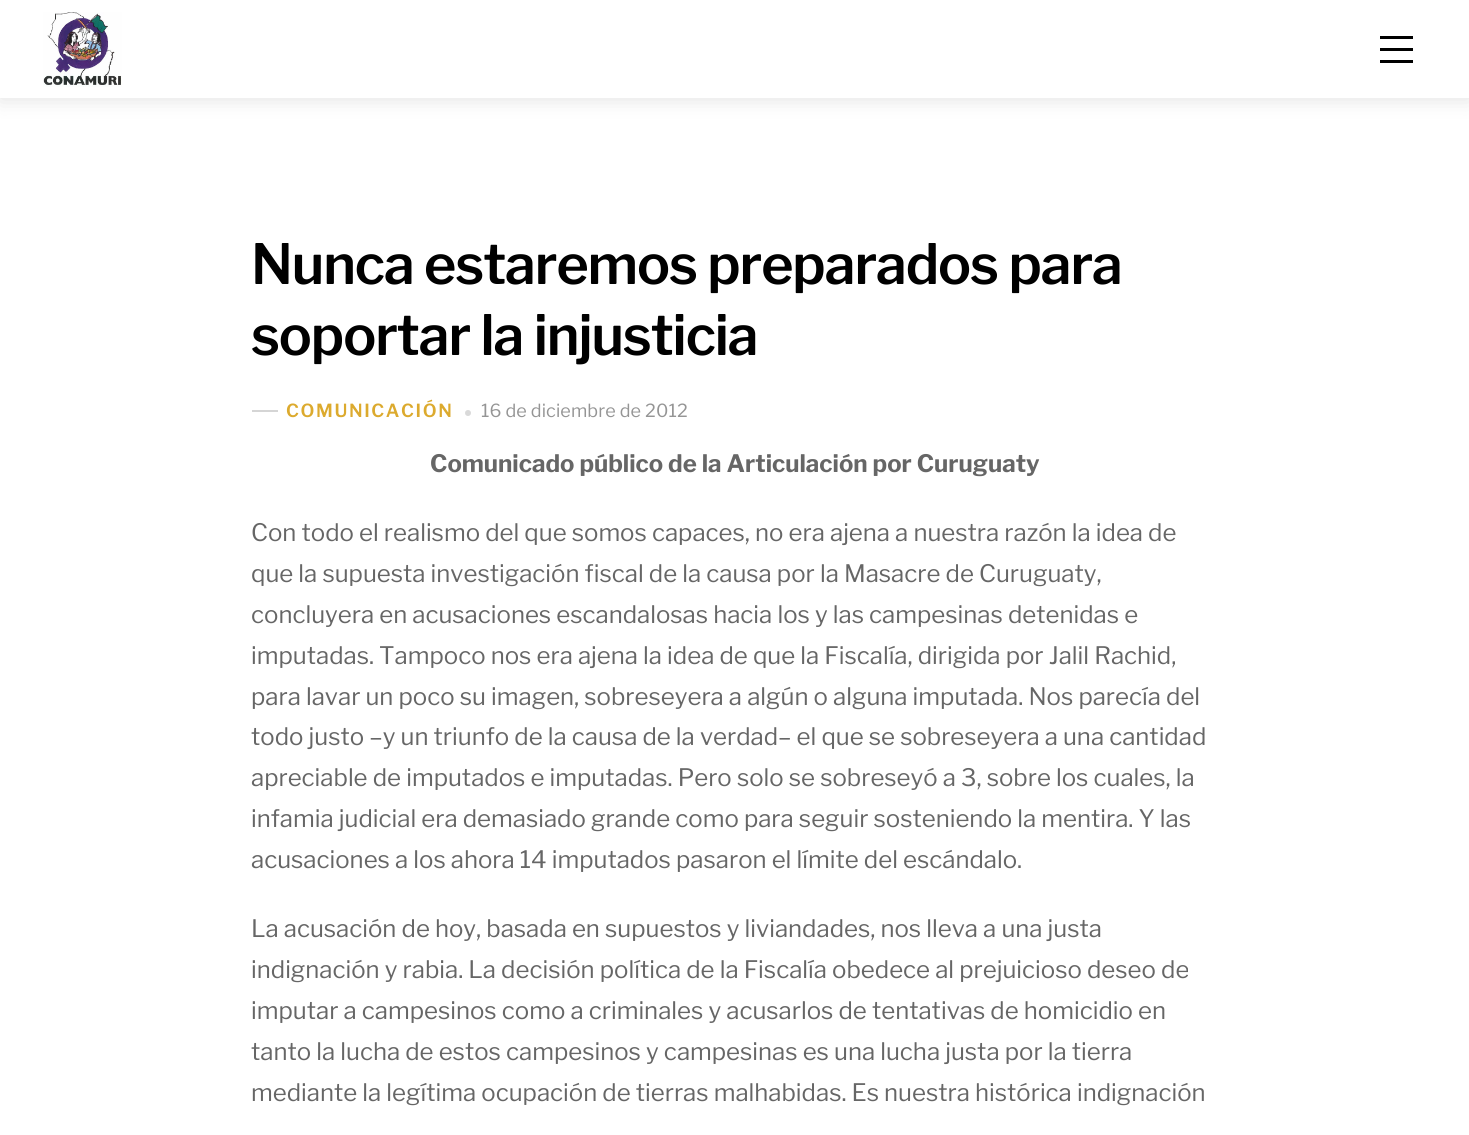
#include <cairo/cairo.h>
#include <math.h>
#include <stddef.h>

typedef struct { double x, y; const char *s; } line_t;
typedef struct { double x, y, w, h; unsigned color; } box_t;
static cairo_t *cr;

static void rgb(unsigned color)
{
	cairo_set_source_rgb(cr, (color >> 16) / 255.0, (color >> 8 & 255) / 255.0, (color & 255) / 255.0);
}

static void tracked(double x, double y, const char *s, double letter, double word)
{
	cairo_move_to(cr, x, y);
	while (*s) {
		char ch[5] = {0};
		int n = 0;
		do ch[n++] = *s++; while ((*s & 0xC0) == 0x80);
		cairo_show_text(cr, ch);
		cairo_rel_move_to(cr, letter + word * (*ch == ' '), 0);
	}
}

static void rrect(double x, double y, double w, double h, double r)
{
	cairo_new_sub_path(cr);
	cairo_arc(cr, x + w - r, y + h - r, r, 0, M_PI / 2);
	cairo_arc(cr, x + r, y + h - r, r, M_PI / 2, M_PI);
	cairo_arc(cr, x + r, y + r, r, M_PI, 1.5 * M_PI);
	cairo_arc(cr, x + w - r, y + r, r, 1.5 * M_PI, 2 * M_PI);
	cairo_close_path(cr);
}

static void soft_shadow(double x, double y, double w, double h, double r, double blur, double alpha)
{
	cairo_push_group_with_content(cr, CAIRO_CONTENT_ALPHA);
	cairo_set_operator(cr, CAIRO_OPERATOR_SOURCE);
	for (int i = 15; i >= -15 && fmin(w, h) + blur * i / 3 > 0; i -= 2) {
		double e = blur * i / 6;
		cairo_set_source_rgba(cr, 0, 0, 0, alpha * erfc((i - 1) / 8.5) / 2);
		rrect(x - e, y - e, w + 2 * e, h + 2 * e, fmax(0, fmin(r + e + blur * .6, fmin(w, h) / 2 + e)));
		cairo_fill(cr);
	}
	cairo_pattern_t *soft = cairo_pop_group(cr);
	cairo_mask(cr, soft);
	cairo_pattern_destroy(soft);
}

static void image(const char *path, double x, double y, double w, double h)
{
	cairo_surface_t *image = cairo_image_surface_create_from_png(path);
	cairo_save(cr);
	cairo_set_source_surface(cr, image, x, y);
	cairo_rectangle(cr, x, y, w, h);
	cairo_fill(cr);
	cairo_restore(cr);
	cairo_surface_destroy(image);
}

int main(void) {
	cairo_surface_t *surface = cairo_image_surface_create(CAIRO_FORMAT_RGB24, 1469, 1135);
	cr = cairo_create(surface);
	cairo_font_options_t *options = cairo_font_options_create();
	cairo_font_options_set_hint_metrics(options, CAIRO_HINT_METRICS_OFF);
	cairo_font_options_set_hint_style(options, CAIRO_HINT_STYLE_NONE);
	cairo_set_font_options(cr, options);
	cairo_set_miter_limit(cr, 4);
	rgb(0xffffff);
	cairo_paint(cr);
	cairo_save(cr);
	cairo_set_fill_rule(cr, CAIRO_FILL_RULE_EVEN_ODD);
	cairo_new_path(cr);
	cairo_move_to(cr, 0, 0);
	cairo_line_to(cr, 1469, 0);
	cairo_line_to(cr, 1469, 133);
	cairo_line_to(cr, 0, 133);
	cairo_close_path(cr);
	cairo_move_to(cr, 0, 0);
	cairo_line_to(cr, 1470, 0);
	cairo_line_to(cr, 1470, 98);
	cairo_line_to(cr, 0, 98);
	cairo_close_path(cr);
	cairo_clip(cr);
	rgb(0x000000);
	soft_shadow(0, 2, 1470, 97, 0, 11, 0.12);
	cairo_restore(cr);
	cairo_set_source_rgba(cr, 1, 1, 1, 0.9);
	cairo_rectangle(cr, 0, 97, 1469, 1);
	cairo_fill(cr);
	image("img/1.png", 43, 12, 79, 75);
	{
		static const box_t items[] = {
			{1380, 36, 33, 3, 0x000000},
			{1380, 60, 33, 3, 0x000000},
			{1380, 48, 33, 3, 0x000000},
			{252, 410, 26, 2, 0xd5d5d5},
		};
		for (size_t i = 0; i < sizeof items / sizeof *items; i++) {
			rgb(items[i].color);
			cairo_rectangle(cr, items[i].x, items[i].y, items[i].w, items[i].h);
			cairo_fill(cr);
		}
	}
	rgb(0xd9d9d9);
	cairo_arc(cr, 468, 413, 3, 0, 2 * M_PI);
	cairo_fill(cr);
	cairo_select_font_face(cr, "Libre Franklin SemiBold", CAIRO_FONT_SLANT_NORMAL, CAIRO_FONT_WEIGHT_NORMAL);
	cairo_set_font_size(cr, 55.25);
	rgb(0x000000);
	tracked(251, 284, "Nunca estaremos preparados para", -1.1, 0);
	tracked(251, 355, "soportar la injusticia", -1.1, 0);
	cairo_set_font_size(cr, 18);
	rgb(0xdcaa2e);
	tracked(286, 417, "COMUNICACIÓN", 1.6, 0);
	cairo_select_font_face(cr, "Libre Franklin", CAIRO_FONT_SLANT_NORMAL, CAIRO_FONT_WEIGHT_NORMAL);
	rgb(0x959595);
	tracked(481, 417, "16 de diciembre de 2012", 0.1, 0);
	cairo_select_font_face(cr, "Libre Franklin", CAIRO_FONT_SLANT_NORMAL, CAIRO_FONT_WEIGHT_BOLD);
	cairo_set_font_size(cr, 24);
	rgb(0x666666);
	cairo_move_to(cr, 430, 472);
	cairo_show_text(cr, "Comunicado público de la Articulación por Curuguaty");
	cairo_select_font_face(cr, "Libre Franklin", CAIRO_FONT_SLANT_NORMAL, CAIRO_FONT_WEIGHT_NORMAL);
	{
		static const line_t items[] = {
			{251, 541, "Con todo el realismo del que somos capaces, no era ajena a nuestra razón la idea de"},
			{251, 582, "que la supuesta investigación fiscal de la causa por la Masacre de Curuguaty,"},
			{251, 623, "concluyera en acusaciones escandalosas hacia los y las campesinas detenidas e"},
			{251, 664, "imputadas. Tampoco nos era ajena la idea de que la Fiscalía, dirigida por Jalil Rachid,"},
			{251, 705, "para lavar un poco su imagen, sobreseyera a algún o alguna imputada. Nos parecía del"},
			{251, 745, "todo justo –y un triunfo de la causa de la verdad– el que se sobreseyera a una cantidad"},
			{251, 786, "apreciable de imputados e imputadas. Pero solo se sobreseyó a 3, sobre los cuales, la"},
			{251, 827, "infamia judicial era demasiado grande como para seguir sosteniendo la mentira. Y las"},
			{251, 868, "acusaciones a los ahora 14 imputados pasaron el límite del escándalo."},
			{251, 937, "La acusación de hoy, basada en supuestos y liviandades, nos lleva a una justa"},
			{251, 978, "indignación y rabia. La decisión política de la Fiscalía obedece al prejuicioso deseo de"},
			{251, 1019, "imputar a campesinos como a criminales y acusarlos de tentativas de homicidio en"},
			{251, 1060, "tanto la lucha de estos campesinos y campesinas es una lucha justa por la tierra"},
			{251, 1101, "mediante la legítima ocupación de tierras malhabidas. Es nuestra histórica indignación"},
		};
		for (size_t i = 0; i < sizeof items / sizeof *items; i++) {
			cairo_move_to(cr, items[i].x, items[i].y);
			cairo_show_text(cr, items[i].s);
		}
	}
	cairo_surface_write_to_png(surface, "page.png");
	cairo_font_options_destroy(options);
	cairo_destroy(cr);
	cairo_surface_destroy(surface);
	return 0;
}
